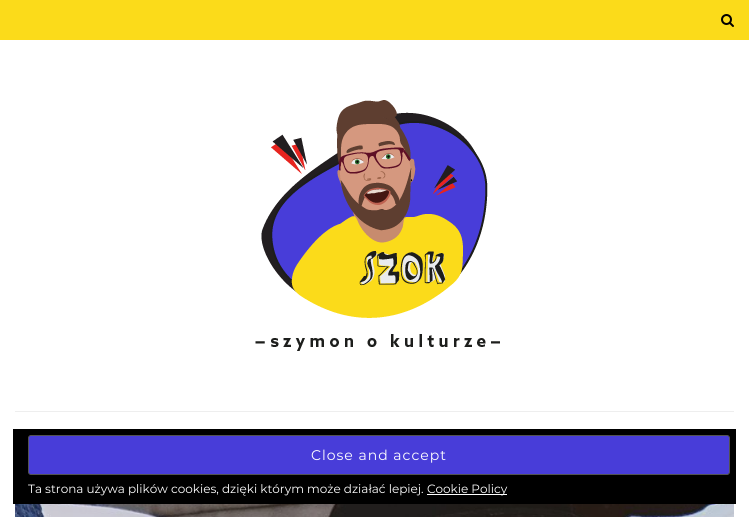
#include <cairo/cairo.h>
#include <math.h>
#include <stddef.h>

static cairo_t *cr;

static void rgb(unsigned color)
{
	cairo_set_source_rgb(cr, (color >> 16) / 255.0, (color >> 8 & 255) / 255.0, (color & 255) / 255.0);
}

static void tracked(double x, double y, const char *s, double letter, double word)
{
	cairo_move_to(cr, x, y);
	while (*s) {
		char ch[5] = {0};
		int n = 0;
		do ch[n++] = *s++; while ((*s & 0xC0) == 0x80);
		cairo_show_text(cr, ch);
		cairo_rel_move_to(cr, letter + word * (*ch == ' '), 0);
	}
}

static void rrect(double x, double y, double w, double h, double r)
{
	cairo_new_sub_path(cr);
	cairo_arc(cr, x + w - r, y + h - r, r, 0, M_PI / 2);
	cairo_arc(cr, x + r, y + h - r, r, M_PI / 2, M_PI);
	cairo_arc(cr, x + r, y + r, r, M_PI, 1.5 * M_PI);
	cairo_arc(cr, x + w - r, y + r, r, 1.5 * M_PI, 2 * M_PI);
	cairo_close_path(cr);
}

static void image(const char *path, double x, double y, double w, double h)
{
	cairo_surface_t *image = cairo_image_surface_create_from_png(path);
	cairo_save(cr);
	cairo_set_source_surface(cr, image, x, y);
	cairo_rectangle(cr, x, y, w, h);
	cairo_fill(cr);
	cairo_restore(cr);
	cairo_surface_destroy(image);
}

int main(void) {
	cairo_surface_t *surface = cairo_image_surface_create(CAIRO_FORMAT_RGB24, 749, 517);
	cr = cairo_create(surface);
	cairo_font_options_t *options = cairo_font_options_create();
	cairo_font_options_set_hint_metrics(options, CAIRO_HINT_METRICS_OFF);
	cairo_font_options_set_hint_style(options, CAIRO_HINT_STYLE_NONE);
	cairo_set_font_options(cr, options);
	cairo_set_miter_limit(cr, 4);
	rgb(0xffffff);
	cairo_paint(cr);
	rgb(0xfbdb1a);
	cairo_rectangle(cr, 0, 0, 749, 40);
	cairo_fill(cr);
	image("img/1.png", 721, 14, 13, 13);
	image("img/2.png", 255, 100, 245, 251);
	rgb(0xeeeeee);
	cairo_rectangle(cr, 15, 411, 719, 1);
	cairo_fill(cr);
	rgb(0x000000);
	cairo_rectangle(cr, 13, 429, 723, 75);
	cairo_fill(cr);
	rgb(0x483dd9);
	rrect(28.5, 435.5, 701, 39, 2.5);
	cairo_fill_preserve(cr);
	rgb(0x535353);
	cairo_set_line_width(cr, 1);
	cairo_stroke(cr);
	rgb(0xffffff);
	cairo_rectangle(cr, 427, 494, 80, 1);
	cairo_fill(cr);
	image("img/3.png", 15, 504, 719, 13);
	cairo_select_font_face(cr, "Montserrat", CAIRO_FONT_SLANT_NORMAL, CAIRO_FONT_WEIGHT_NORMAL);
	cairo_set_font_size(cr, 14);
	tracked(311, 460, "Close and accept", 1, 0);
	cairo_set_font_size(cr, 12);
	cairo_move_to(cr, 28, 493);
	cairo_show_text(cr, "Ta strona używa plików cookies, dzięki którym może działać lepiej.");
	cairo_move_to(cr, 427, 493);
	cairo_show_text(cr, "Cookie Policy");
	cairo_surface_write_to_png(surface, "page.png");
	cairo_font_options_destroy(options);
	cairo_destroy(cr);
	cairo_surface_destroy(surface);
	return 0;
}
